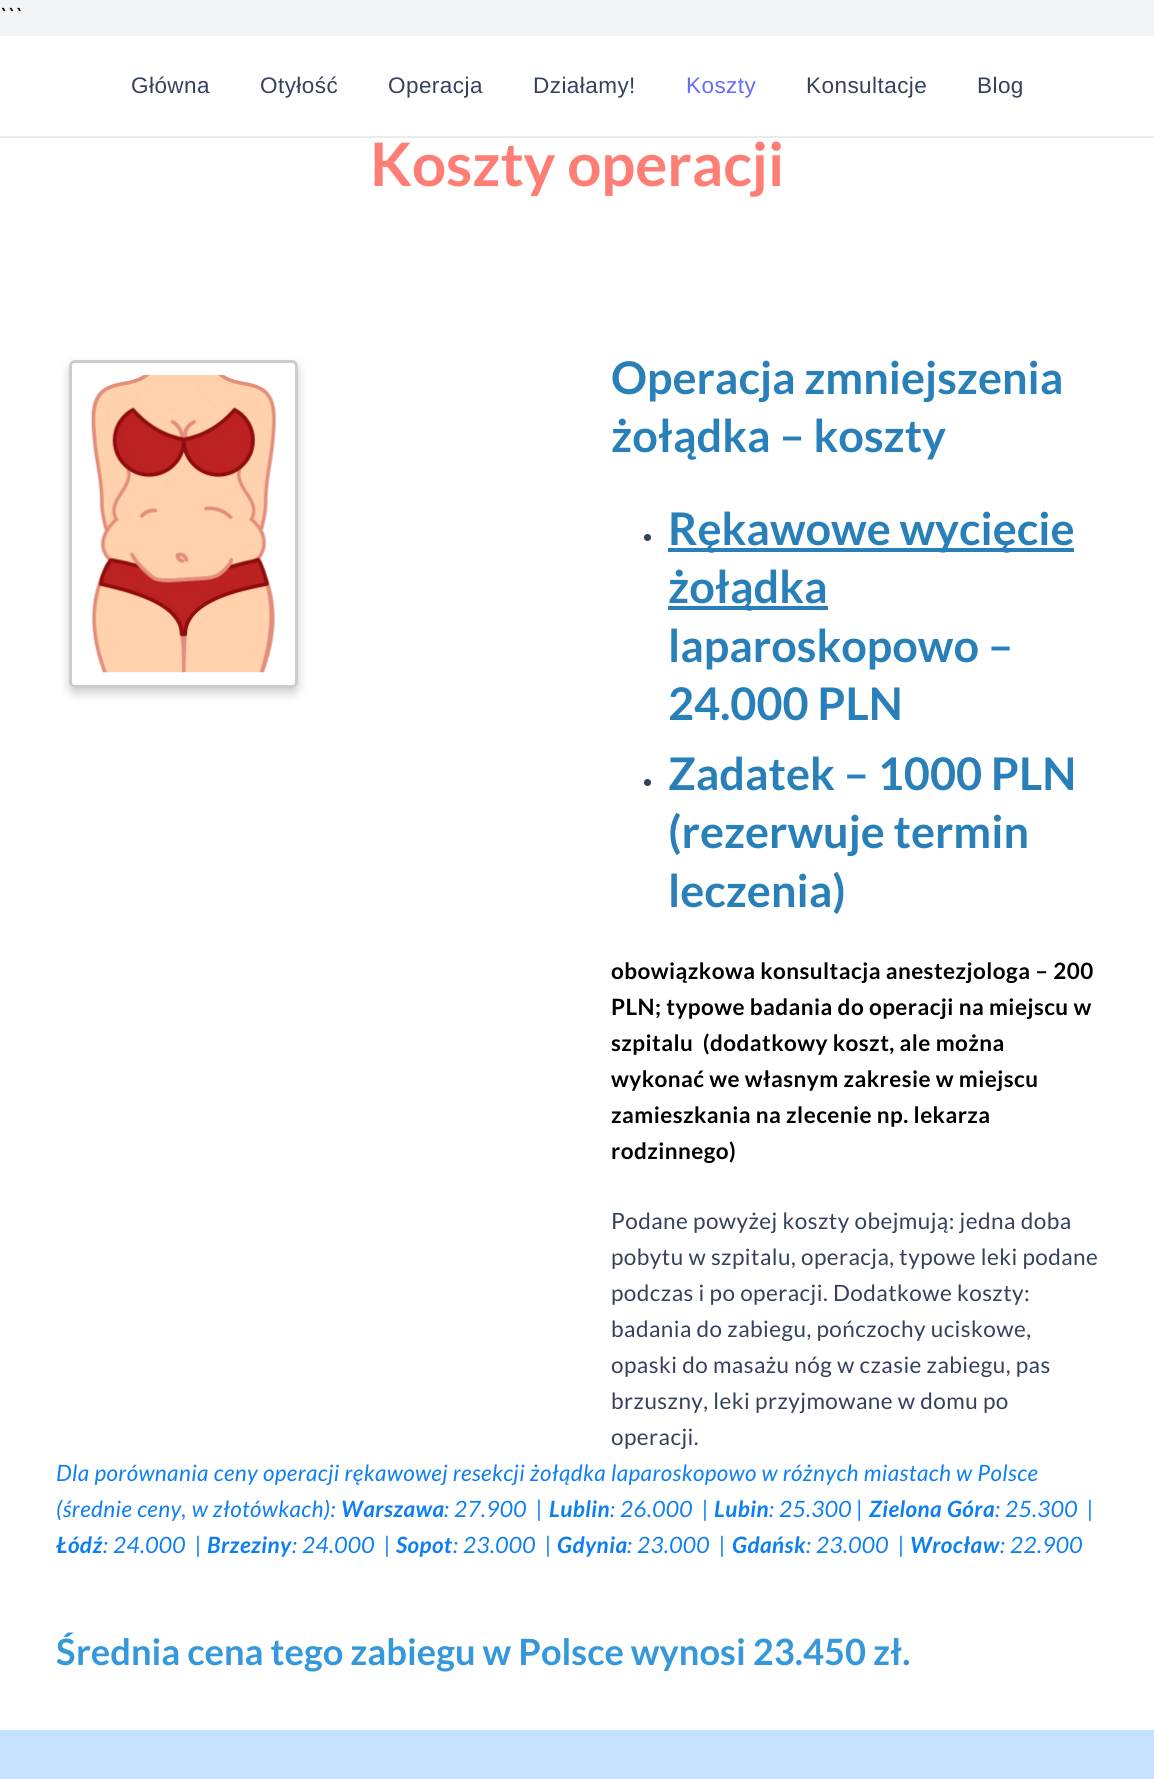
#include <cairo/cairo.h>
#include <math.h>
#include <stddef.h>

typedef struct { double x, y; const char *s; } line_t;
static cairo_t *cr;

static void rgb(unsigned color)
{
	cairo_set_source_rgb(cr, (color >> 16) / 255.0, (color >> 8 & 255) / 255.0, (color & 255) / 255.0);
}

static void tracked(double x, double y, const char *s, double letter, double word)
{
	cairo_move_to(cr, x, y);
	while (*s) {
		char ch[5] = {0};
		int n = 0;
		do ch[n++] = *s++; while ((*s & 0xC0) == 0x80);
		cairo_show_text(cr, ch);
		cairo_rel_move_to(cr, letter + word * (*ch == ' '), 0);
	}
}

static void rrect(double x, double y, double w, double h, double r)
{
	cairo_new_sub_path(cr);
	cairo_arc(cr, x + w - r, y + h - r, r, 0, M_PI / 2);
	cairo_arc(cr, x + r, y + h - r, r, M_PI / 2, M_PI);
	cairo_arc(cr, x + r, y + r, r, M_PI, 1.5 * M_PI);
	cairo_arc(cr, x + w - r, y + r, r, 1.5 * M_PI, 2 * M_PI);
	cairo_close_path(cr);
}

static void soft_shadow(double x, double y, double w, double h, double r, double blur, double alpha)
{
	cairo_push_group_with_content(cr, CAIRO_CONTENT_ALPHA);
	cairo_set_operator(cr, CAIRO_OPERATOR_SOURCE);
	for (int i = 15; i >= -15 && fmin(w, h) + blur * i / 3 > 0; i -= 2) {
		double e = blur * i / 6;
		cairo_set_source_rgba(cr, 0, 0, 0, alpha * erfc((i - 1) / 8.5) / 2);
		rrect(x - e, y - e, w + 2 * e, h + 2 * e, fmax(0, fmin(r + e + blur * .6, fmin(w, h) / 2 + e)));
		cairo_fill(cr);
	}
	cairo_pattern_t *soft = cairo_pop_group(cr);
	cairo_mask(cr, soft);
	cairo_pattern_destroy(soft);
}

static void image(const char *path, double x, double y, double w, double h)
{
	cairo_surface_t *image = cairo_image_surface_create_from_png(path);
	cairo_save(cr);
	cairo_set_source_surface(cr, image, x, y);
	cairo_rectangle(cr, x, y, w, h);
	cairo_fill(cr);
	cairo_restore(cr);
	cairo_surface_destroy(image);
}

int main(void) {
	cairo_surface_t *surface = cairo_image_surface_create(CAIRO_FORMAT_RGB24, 1154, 1779);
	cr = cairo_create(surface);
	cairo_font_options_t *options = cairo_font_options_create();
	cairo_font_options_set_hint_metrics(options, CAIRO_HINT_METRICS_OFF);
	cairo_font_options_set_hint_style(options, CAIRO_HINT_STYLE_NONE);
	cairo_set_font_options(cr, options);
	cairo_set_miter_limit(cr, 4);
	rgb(0xf2f4f7);
	cairo_paint(cr);
	rgb(0xffffff);
	cairo_rectangle(cr, 0, 36, 1154, 1694);
	cairo_fill(cr);
	rgb(0xebebeb);
	cairo_rectangle(cr, 0, 136, 1154, 2);
	cairo_fill(cr);
	cairo_save(cr);
	cairo_set_fill_rule(cr, CAIRO_FILL_RULE_EVEN_ODD);
	cairo_new_path(cr);
	cairo_move_to(cr, 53, 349);
	cairo_line_to(cr, 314, 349);
	cairo_line_to(cr, 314, 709);
	cairo_line_to(cr, 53, 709);
	cairo_close_path(cr);
	cairo_move_to(cr, 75, 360);
	cairo_line_to(cr, 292, 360);
	cairo_curve_to(cr, 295.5, 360, 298, 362.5, 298, 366);
	cairo_line_to(cr, 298, 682);
	cairo_curve_to(cr, 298, 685.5, 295.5, 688, 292, 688);
	cairo_line_to(cr, 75, 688);
	cairo_curve_to(cr, 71.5, 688, 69, 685.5, 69, 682);
	cairo_line_to(cr, 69, 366);
	cairo_curve_to(cr, 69, 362.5, 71.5, 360, 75, 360);
	cairo_close_path(cr);
	cairo_clip(cr);
	rgb(0x000000);
	soft_shadow(69, 365, 229, 328, 6, 5, 0.2);
	cairo_restore(cr);
	rrect(70.5, 361.5, 226, 325, 4.5);
	rgb(0xcccccc);
	cairo_set_line_width(cr, 3);
	cairo_stroke(cr);
	image("img/1.png", 90, 375, 186, 298);
	rgb(0x35415b);
	cairo_arc(cr, 647.5, 537.5, 3.5, 0, 2 * M_PI);
	cairo_fill(cr);
	rgb(0x2980b9);
	cairo_rectangle(cr, 668, 548, 406, 4);
	cairo_fill(cr);
	cairo_rectangle(cr, 668, 606, 160, 4);
	cairo_fill(cr);
	rgb(0x35415b);
	cairo_arc(cr, 647.5, 782.5, 3.5, 0, 2 * M_PI);
	cairo_fill(cr);
	rgb(0xc4e1ff);
	cairo_rectangle(cr, 0, 1730, 1154, 49);
	cairo_fill(cr);
	cairo_select_font_face(cr, "Inter", CAIRO_FONT_SLANT_NORMAL, CAIRO_FONT_WEIGHT_NORMAL);
	cairo_set_font_size(cr, 22.5);
	rgb(0x000000);
	tracked(0, 25, "```", 0.45, 0);
	cairo_select_font_face(cr, "Liberation Sans", CAIRO_FONT_SLANT_NORMAL, CAIRO_FONT_WEIGHT_NORMAL);
	rgb(0x35415b);
	{
		static const line_t items[] = {
			{131, 93, "Główna"},
			{260, 93, "Otyłość"},
			{388, 93, "Operacja"},
			{533, 93, "Działamy!"},
		};
		for (size_t i = 0; i < sizeof items / sizeof *items; i++) {
			tracked(items[i].x, items[i].y, items[i].s, 0.45, 0);
		}
	}
	rgb(0x646cfd);
	tracked(686, 93, "Koszty", 0.45, 0);
	rgb(0x35415b);
	tracked(806, 93, "Konsultacje", 0.45, 0);
	tracked(977, 93, "Blog", 0.45, 0);
	cairo_select_font_face(cr, "Lato", CAIRO_FONT_SLANT_NORMAL, CAIRO_FONT_WEIGHT_BOLD);
	cairo_set_font_size(cr, 60);
	rgb(0xfe7e75);
	cairo_move_to(cr, 370, 186);
	cairo_show_text(cr, "Koszty operacji");
	cairo_set_font_size(cr, 45);
	rgb(0x2980b9);
	{
		static const line_t items[] = {
			{611, 394, "Operacja zmniejszenia"},
			{611, 452, "żołądka – koszty"},
			{668, 545, "Rękawowe wycięcie"},
			{668, 603, "żołądka"},
			{668, 662, "laparoskopowo –"},
			{668, 720, "24.000 PLN"},
			{668, 790, "Zadatek – 1000 PLN"},
			{668, 848, "(rezerwuje termin"},
			{668, 907, "leczenia)"},
		};
		for (size_t i = 0; i < sizeof items / sizeof *items; i++) {
			cairo_move_to(cr, items[i].x, items[i].y);
			cairo_show_text(cr, items[i].s);
		}
	}
	cairo_set_font_size(cr, 22.5);
	rgb(0x000000);
	{
		static const line_t items[] = {
			{611, 979, "obowiązkowa konsultacja anestezjologa – 200"},
			{611, 1015, "PLN; typowe badania do operacji na miejscu w"},
			{611, 1051, "szpitalu  (dodatkowy koszt, ale można"},
			{611, 1087, "wykonać we własnym zakresie w miejscu"},
			{611, 1123, "zamieszkania na zlecenie np. lekarza"},
			{611, 1159, "rodzinnego)"},
		};
		for (size_t i = 0; i < sizeof items / sizeof *items; i++) {
			tracked(items[i].x, items[i].y, items[i].s, 0.45, 0);
		}
	}
	cairo_select_font_face(cr, "Lato", CAIRO_FONT_SLANT_NORMAL, CAIRO_FONT_WEIGHT_NORMAL);
	rgb(0x35415b);
	{
		static const line_t items[] = {
			{611, 1229, "Podane powyżej koszty obejmują: jedna doba"},
			{611, 1265, "pobytu w szpitalu, operacja, typowe leki podane"},
			{611, 1301, "podczas i po operacji. Dodatkowe koszty:"},
			{611, 1337, "badania do zabiegu, pończochy uciskowe,"},
			{611, 1373, "opaski do masażu nóg w czasie zabiegu, pas"},
			{611, 1409, "brzuszny, leki przyjmowane w domu po"},
			{611, 1445, "operacji."},
		};
		for (size_t i = 0; i < sizeof items / sizeof *items; i++) {
			tracked(items[i].x, items[i].y, items[i].s, 0.45, 0);
		}
	}
	cairo_select_font_face(cr, "Lato", CAIRO_FONT_SLANT_ITALIC, CAIRO_FONT_WEIGHT_NORMAL);
	rgb(0x0e7ff0);
	tracked(56, 1481, "Dla porównania ceny operacji rękawowej resekcji żołądka laparoskopowo w różnych miastach w Polsce", 0.45, 0);
	tracked(56, 1517, "(średnie ceny, w złotówkach):", 0.45, 0);
	cairo_select_font_face(cr, "Lato", CAIRO_FONT_SLANT_ITALIC, CAIRO_FONT_WEIGHT_BOLD);
	tracked(341, 1517, "Warszawa", 0.45, 0);
	cairo_select_font_face(cr, "Lato", CAIRO_FONT_SLANT_ITALIC, CAIRO_FONT_WEIGHT_NORMAL);
	tracked(444, 1517, ": 27.900  |", 0.45, 0);
	cairo_select_font_face(cr, "Lato", CAIRO_FONT_SLANT_ITALIC, CAIRO_FONT_WEIGHT_BOLD);
	tracked(549, 1517, "Lublin", 0.45, 0);
	cairo_select_font_face(cr, "Lato", CAIRO_FONT_SLANT_ITALIC, CAIRO_FONT_WEIGHT_NORMAL);
	tracked(610, 1517, ": 26.000  |", 0.45, 0);
	cairo_select_font_face(cr, "Lato", CAIRO_FONT_SLANT_ITALIC, CAIRO_FONT_WEIGHT_BOLD);
	tracked(714, 1517, "Lubin", 0.45, 0);
	cairo_select_font_face(cr, "Lato", CAIRO_FONT_SLANT_ITALIC, CAIRO_FONT_WEIGHT_NORMAL);
	tracked(769, 1517, ": 25.300 |", 0.45, 0);
	cairo_select_font_face(cr, "Lato", CAIRO_FONT_SLANT_ITALIC, CAIRO_FONT_WEIGHT_BOLD);
	tracked(869, 1517, "Zielona Góra", 0.45, 0);
	cairo_select_font_face(cr, "Lato", CAIRO_FONT_SLANT_ITALIC, CAIRO_FONT_WEIGHT_NORMAL);
	tracked(995, 1517, ": 25.300  |", 0.45, 0);
	cairo_select_font_face(cr, "Lato", CAIRO_FONT_SLANT_ITALIC, CAIRO_FONT_WEIGHT_BOLD);
	tracked(56, 1553, "Łódź", 0.45, 0);
	cairo_select_font_face(cr, "Lato", CAIRO_FONT_SLANT_ITALIC, CAIRO_FONT_WEIGHT_NORMAL);
	tracked(103, 1553, ": 24.000  |", 0.45, 0);
	cairo_select_font_face(cr, "Lato", CAIRO_FONT_SLANT_ITALIC, CAIRO_FONT_WEIGHT_BOLD);
	tracked(207, 1553, "Brzeziny", 0.45, 0);
	cairo_select_font_face(cr, "Lato", CAIRO_FONT_SLANT_ITALIC, CAIRO_FONT_WEIGHT_NORMAL);
	tracked(292, 1553, ": 24.000  |", 0.45, 0);
	cairo_select_font_face(cr, "Lato", CAIRO_FONT_SLANT_ITALIC, CAIRO_FONT_WEIGHT_BOLD);
	tracked(396, 1553, "Sopot", 0.45, 0);
	cairo_select_font_face(cr, "Lato", CAIRO_FONT_SLANT_ITALIC, CAIRO_FONT_WEIGHT_NORMAL);
	tracked(453, 1553, ": 23.000  |", 0.45, 0);
	cairo_select_font_face(cr, "Lato", CAIRO_FONT_SLANT_ITALIC, CAIRO_FONT_WEIGHT_BOLD);
	tracked(557, 1553, "Gdynia", 0.45, 0);
	cairo_select_font_face(cr, "Lato", CAIRO_FONT_SLANT_ITALIC, CAIRO_FONT_WEIGHT_NORMAL);
	tracked(627, 1553, ": 23.000  |", 0.45, 0);
	cairo_select_font_face(cr, "Lato", CAIRO_FONT_SLANT_ITALIC, CAIRO_FONT_WEIGHT_BOLD);
	tracked(732, 1553, "Gdańsk", 0.45, 0);
	cairo_select_font_face(cr, "Lato", CAIRO_FONT_SLANT_ITALIC, CAIRO_FONT_WEIGHT_NORMAL);
	tracked(806, 1553, ": 23.000  |", 0.45, 0);
	cairo_select_font_face(cr, "Lato", CAIRO_FONT_SLANT_ITALIC, CAIRO_FONT_WEIGHT_BOLD);
	tracked(910, 1553, "Wrocław", 0.45, 0);
	cairo_select_font_face(cr, "Lato", CAIRO_FONT_SLANT_ITALIC, CAIRO_FONT_WEIGHT_NORMAL);
	tracked(1000, 1553, ": 22.900", 0.45, 0);
	cairo_select_font_face(cr, "Lato", CAIRO_FONT_SLANT_NORMAL, CAIRO_FONT_WEIGHT_BOLD);
	cairo_set_font_size(cr, 36.25);
	rgb(0x3498db);
	cairo_move_to(cr, 56, 1665);
	cairo_show_text(cr, "Średnia cena tego zabiegu w Polsce wynosi 23.450 zł.");
	cairo_surface_write_to_png(surface, "page.png");
	cairo_font_options_destroy(options);
	cairo_destroy(cr);
	cairo_surface_destroy(surface);
	return 0;
}
